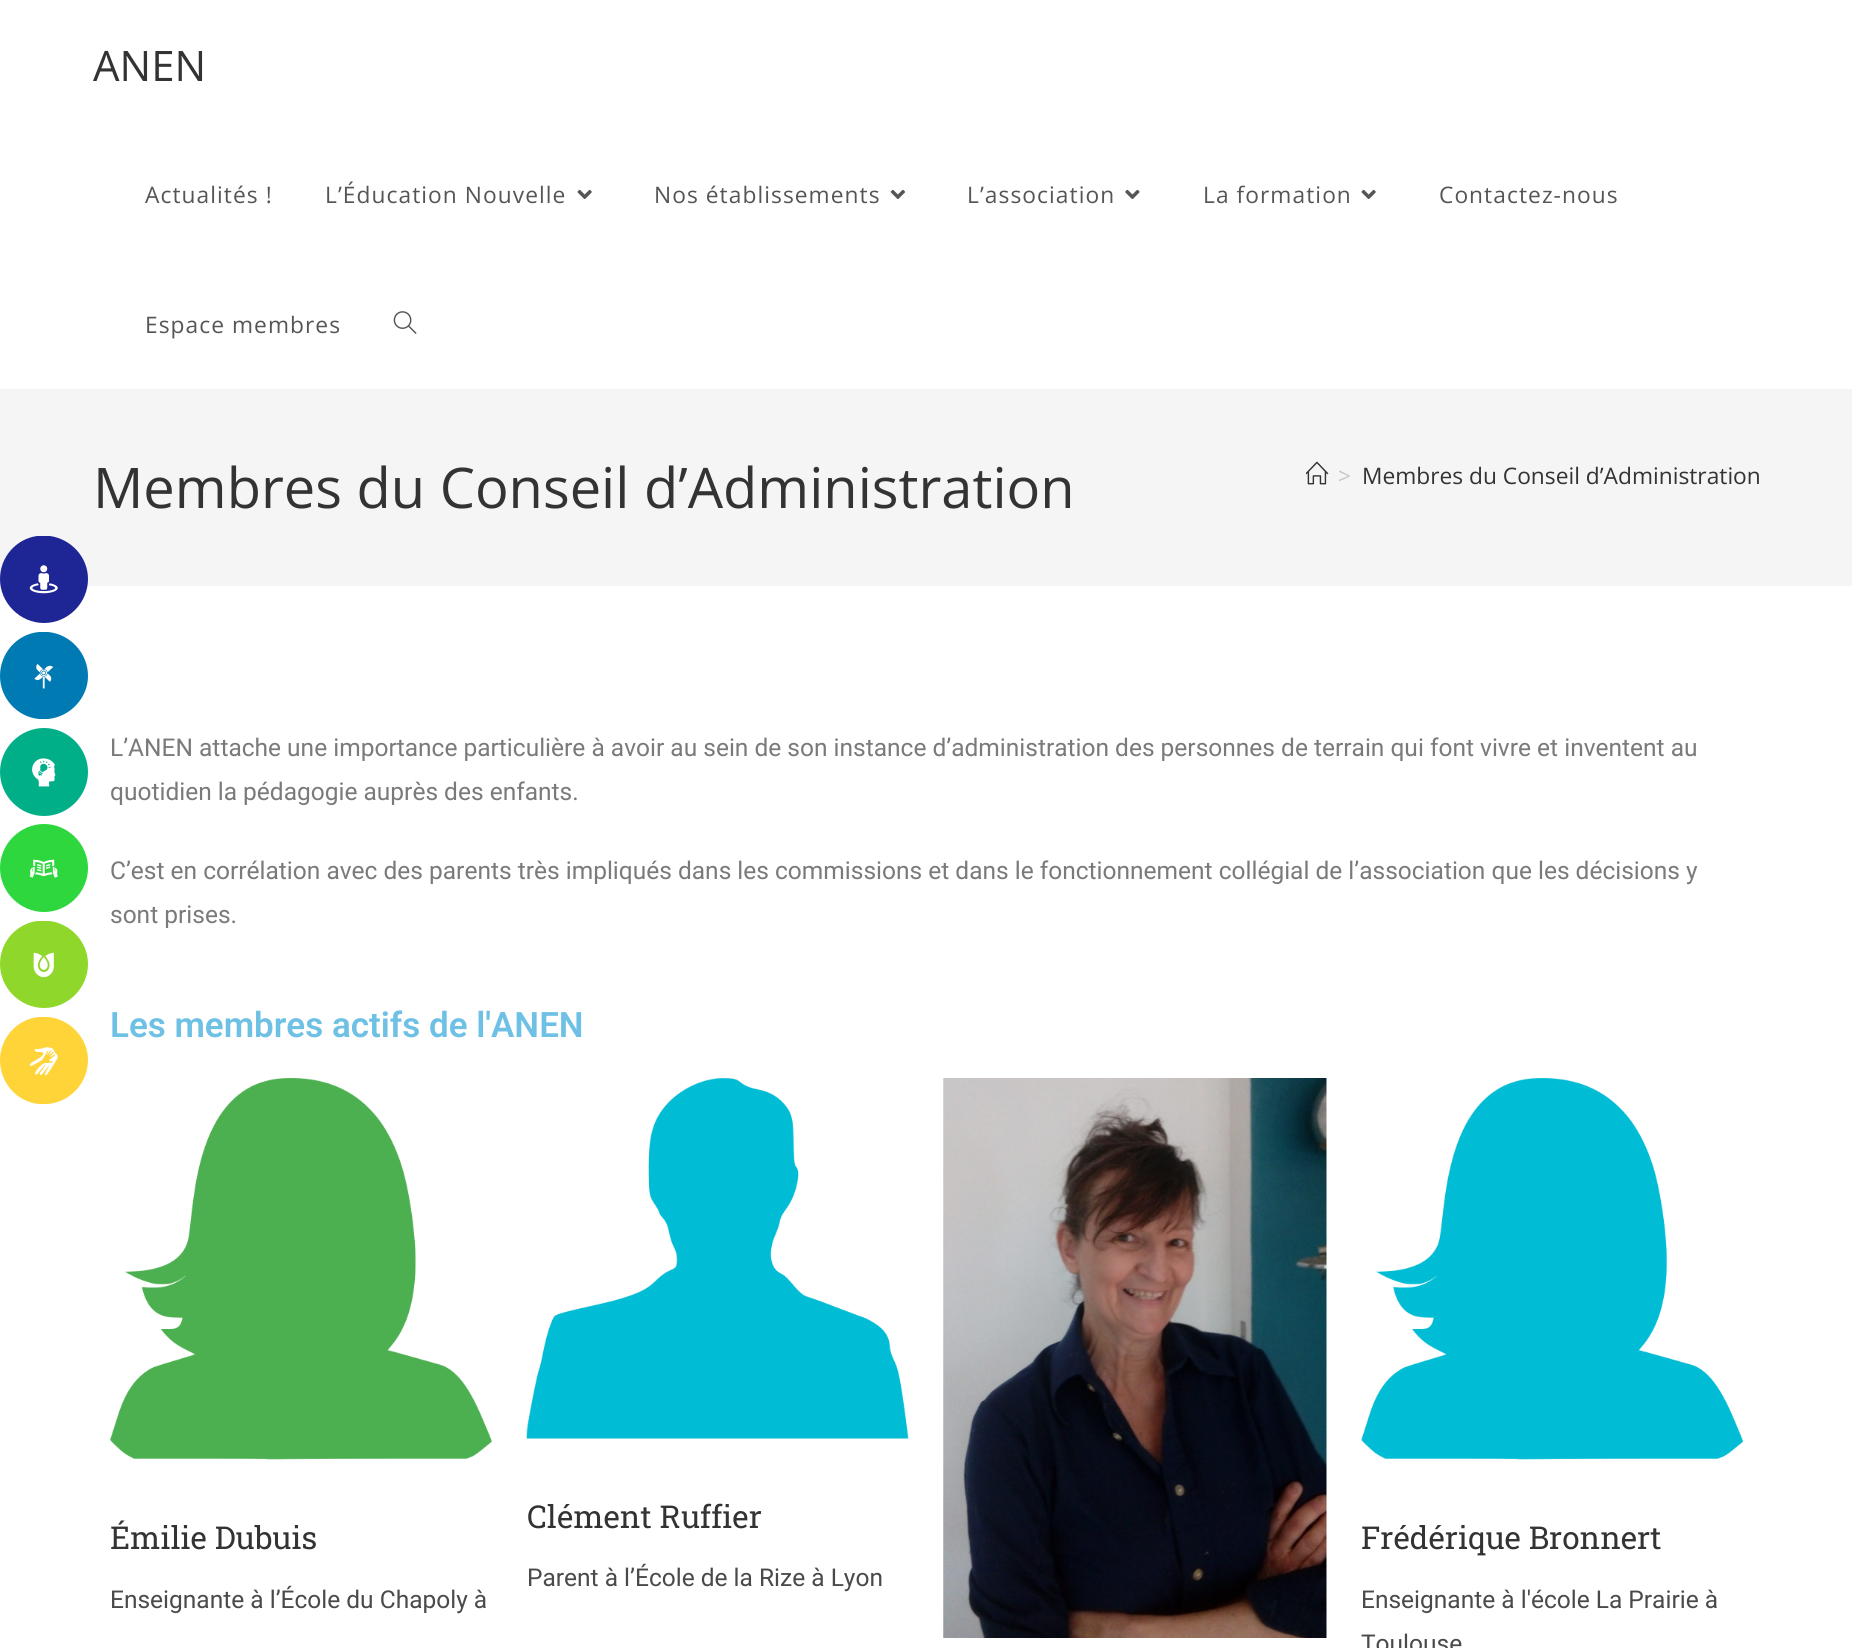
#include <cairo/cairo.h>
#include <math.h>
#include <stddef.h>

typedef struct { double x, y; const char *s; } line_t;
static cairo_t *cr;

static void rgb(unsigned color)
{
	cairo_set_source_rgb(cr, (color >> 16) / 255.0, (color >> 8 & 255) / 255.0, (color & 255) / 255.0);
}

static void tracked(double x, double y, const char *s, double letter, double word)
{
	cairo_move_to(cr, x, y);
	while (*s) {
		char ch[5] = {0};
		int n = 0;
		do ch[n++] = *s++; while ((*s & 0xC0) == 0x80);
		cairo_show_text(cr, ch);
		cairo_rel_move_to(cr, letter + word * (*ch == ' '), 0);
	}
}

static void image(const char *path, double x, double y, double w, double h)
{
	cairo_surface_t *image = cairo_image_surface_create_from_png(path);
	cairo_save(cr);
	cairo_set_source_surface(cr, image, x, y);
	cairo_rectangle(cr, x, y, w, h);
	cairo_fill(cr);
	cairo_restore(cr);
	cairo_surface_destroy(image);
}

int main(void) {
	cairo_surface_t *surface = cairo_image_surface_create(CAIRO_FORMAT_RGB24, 1852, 1648);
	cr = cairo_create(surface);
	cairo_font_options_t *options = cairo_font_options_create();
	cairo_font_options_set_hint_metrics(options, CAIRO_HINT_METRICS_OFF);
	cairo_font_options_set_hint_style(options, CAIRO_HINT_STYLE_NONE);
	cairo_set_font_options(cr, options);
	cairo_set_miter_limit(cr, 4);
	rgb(0xffffff);
	cairo_paint(cr);
	rgb(0xf5f5f5);
	cairo_rectangle(cr, 0, 389, 1852, 197);
	cairo_fill(cr);
	rgb(0x1e2695);
	cairo_new_path(cr);
	cairo_move_to(cr, 50, 536);
	cairo_curve_to(cr, 71, 539, 88, 557, 88, 579);
	cairo_curve_to(cr, 88, 603, 68, 623, 44, 623);
	cairo_curve_to(cr, 20, 623, 0, 603, 0, 579);
	cairo_curve_to(cr, 0, 557, 16, 539, 37, 536);
	cairo_close_path(cr);
	cairo_fill(cr);
	image("img/1.png", 29, 565, 29, 29);
	rgb(0x007ab2);
	cairo_new_path(cr);
	cairo_move_to(cr, 39, 719);
	cairo_curve_to(cr, 17, 717, 0, 698, 0, 676);
	cairo_curve_to(cr, 0, 653, 17, 634, 39, 632);
	cairo_line_to(cr, 48, 632);
	cairo_curve_to(cr, 70, 634, 88, 653, 88, 676);
	cairo_curve_to(cr, 88, 698, 70, 717, 48, 719);
	cairo_close_path(cr);
	cairo_fill(cr);
	image("img/2.png", 34, 664, 20, 25);
	rgb(0x00af88);
	cairo_new_path(cr);
	cairo_move_to(cr, 44, 728);
	cairo_curve_to(cr, 68, 728, 88, 748, 88, 772);
	cairo_curve_to(cr, 88, 796, 68, 816, 44, 816);
	cairo_curve_to(cr, 20, 816, 0, 796, 0, 772);
	cairo_curve_to(cr, 0, 748, 20, 728, 44, 728);
	cairo_close_path(cr);
	cairo_fill(cr);
	image("img/3.png", 32, 758, 24, 29);
	rgb(0x2dd73d);
	cairo_new_path(cr);
	cairo_move_to(cr, 44, 824);
	cairo_curve_to(cr, 20, 824, 0, 844, 0, 868);
	cairo_curve_to(cr, 0, 892, 20, 912, 44, 912);
	cairo_curve_to(cr, 68, 912, 88, 892, 88, 868);
	cairo_curve_to(cr, 88, 844, 68, 824, 44, 824);
	cairo_close_path(cr);
	cairo_fill(cr);
	image("img/4.png", 29, 859, 29, 19);
	rgb(0x8fd72b);
	cairo_new_path(cr);
	cairo_move_to(cr, 50, 921);
	cairo_curve_to(cr, 71, 924, 88, 942, 88, 964);
	cairo_curve_to(cr, 88, 988, 68, 1008, 44, 1008);
	cairo_curve_to(cr, 20, 1008, 0, 988, 0, 964);
	cairo_curve_to(cr, 0, 942, 16, 924, 37, 921);
	cairo_close_path(cr);
	cairo_fill(cr);
	image("img/5.png", 33, 952, 21, 26);
	rgb(0xffd438);
	cairo_new_path(cr);
	cairo_move_to(cr, 39, 1104);
	cairo_curve_to(cr, 17, 1102, 0, 1083, 0, 1060);
	cairo_curve_to(cr, 0, 1038, 17, 1019, 39, 1017);
	cairo_line_to(cr, 48, 1017);
	cairo_curve_to(cr, 70, 1019, 88, 1038, 88, 1060);
	cairo_curve_to(cr, 88, 1083, 70, 1102, 48, 1104);
	cairo_close_path(cr);
	cairo_fill(cr);
	image("img/6.png", 29, 1047, 29, 29);
	image("img/7.png", 577, 189, 15, 10);
	image("img/8.png", 890, 189, 15, 10);
	image("img/9.png", 1125, 189, 15, 10);
	image("img/7.png", 1361, 189, 15, 10);
	image("img/10.png", 393, 311, 24, 23);
	image("img/11.png", 1306, 461, 23, 24);
	image("img/12.png", 110, 1078, 382, 382);
	image("img/13.png", 526, 1078, 383, 361);
	image("img/14.png", 943, 1078, 384, 560);
	image("img/15.png", 1361, 1078, 382, 382);
	cairo_select_font_face(cr, "Open Sans", CAIRO_FONT_SLANT_NORMAL, CAIRO_FONT_WEIGHT_NORMAL);
	cairo_set_font_size(cr, 42);
	rgb(0x333333);
	cairo_move_to(cr, 93, 81);
	cairo_show_text(cr, "ANEN");
	cairo_set_font_size(cr, 22.75);
	rgb(0x555555);
	{
		static const line_t items[] = {
			{145, 203, "Actualités !"},
			{325, 203, "L’Éducation Nouvelle"},
			{654, 203, "Nos établissements"},
			{967, 203, "L’association"},
			{1203, 203, "La formation"},
			{1439, 203, "Contactez-nous"},
			{145, 333, "Espace membres"},
		};
		for (size_t i = 0; i < sizeof items / sizeof *items; i++) {
			tracked(items[i].x, items[i].y, items[i].s, 1.05, 0);
		}
	}
	cairo_set_font_size(cr, 56);
	rgb(0x333333);
	cairo_move_to(cr, 93, 508);
	cairo_show_text(cr, "Membres du Conseil d’Administration");
	cairo_set_font_size(cr, 22.75);
	rgb(0xc6c6c6);
	cairo_move_to(cr, 1338, 484);
	cairo_show_text(cr, ">");
	rgb(0x333333);
	cairo_move_to(cr, 1362, 484);
	cairo_show_text(cr, "Membres du Conseil d’Administration");
	cairo_select_font_face(cr, "Roboto", CAIRO_FONT_SLANT_NORMAL, CAIRO_FONT_WEIGHT_NORMAL);
	cairo_set_font_size(cr, 24.5);
	rgb(0x7a7a7a);
	{
		static const line_t items[] = {
			{110, 756, "L’ANEN attache une importance particulière à avoir au sein de son instance d’administration des personnes de terrain qui font vivre et inventent au"},
			{110, 800, "quotidien la pédagogie auprès des enfants."},
			{110, 879, "C’est en corrélation avec des parents très impliqués dans les commissions et dans le fonctionnement collégial de l’association que les décisions y"},
			{110, 923, "sont prises."},
		};
		for (size_t i = 0; i < sizeof items / sizeof *items; i++) {
			cairo_move_to(cr, items[i].x, items[i].y);
			cairo_show_text(cr, items[i].s);
		}
	}
	cairo_select_font_face(cr, "Roboto SemiBold", CAIRO_FONT_SLANT_NORMAL, CAIRO_FONT_WEIGHT_NORMAL);
	cairo_set_font_size(cr, 35);
	rgb(0x6ec1e4);
	cairo_move_to(cr, 110, 1037);
	cairo_show_text(cr, "Les membres actifs de l'ANEN");
	cairo_select_font_face(cr, "Roboto Slab", CAIRO_FONT_SLANT_NORMAL, CAIRO_FONT_WEIGHT_NORMAL);
	cairo_set_font_size(cr, 31.5);
	rgb(0x333333);
	cairo_move_to(cr, 110, 1549);
	cairo_show_text(cr, "Émilie Dubuis");
	cairo_select_font_face(cr, "Roboto", CAIRO_FONT_SLANT_NORMAL, CAIRO_FONT_WEIGHT_NORMAL);
	cairo_set_font_size(cr, 24.5);
	rgb(0x4a4a4a);
	cairo_move_to(cr, 110, 1608);
	cairo_show_text(cr, "Enseignante à l’École du Chapoly à");
	cairo_select_font_face(cr, "Roboto Slab", CAIRO_FONT_SLANT_NORMAL, CAIRO_FONT_WEIGHT_NORMAL);
	cairo_set_font_size(cr, 31.5);
	rgb(0x333333);
	cairo_move_to(cr, 527, 1528);
	cairo_show_text(cr, "Clément Ruffier");
	cairo_select_font_face(cr, "Roboto", CAIRO_FONT_SLANT_NORMAL, CAIRO_FONT_WEIGHT_NORMAL);
	cairo_set_font_size(cr, 24.5);
	rgb(0x4a4a4a);
	cairo_move_to(cr, 527, 1586);
	cairo_show_text(cr, "Parent à l’École de la Rize à Lyon");
	cairo_select_font_face(cr, "Roboto Slab", CAIRO_FONT_SLANT_NORMAL, CAIRO_FONT_WEIGHT_NORMAL);
	cairo_set_font_size(cr, 31.5);
	rgb(0x333333);
	cairo_move_to(cr, 1361, 1549);
	cairo_show_text(cr, "Frédérique Bronnert");
	cairo_select_font_face(cr, "Roboto", CAIRO_FONT_SLANT_NORMAL, CAIRO_FONT_WEIGHT_NORMAL);
	cairo_set_font_size(cr, 24.5);
	rgb(0x4a4a4a);
	cairo_move_to(cr, 1361, 1608);
	cairo_show_text(cr, "Enseignante à l'école La Prairie à");
	cairo_move_to(cr, 1361, 1652);
	cairo_show_text(cr, "Toulouse");
	cairo_surface_write_to_png(surface, "page.png");
	cairo_font_options_destroy(options);
	cairo_destroy(cr);
	cairo_surface_destroy(surface);
	return 0;
}
